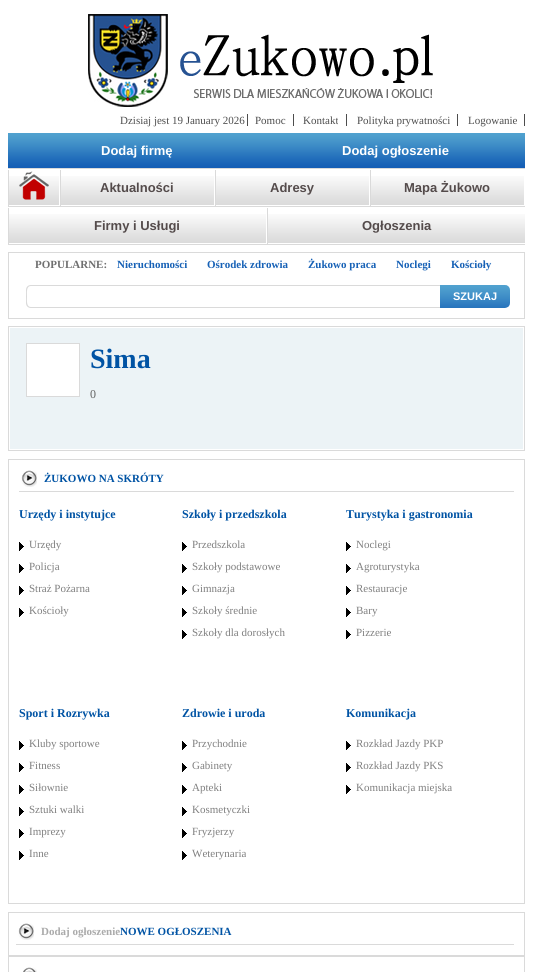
#include <cairo/cairo.h>
#include <math.h>
#include <stddef.h>

typedef struct { double x, y; const char *s; } line_t;
typedef struct { double x, y, w, h; unsigned color; } box_t;
static cairo_t *cr;

static void rgb(unsigned color)
{
	cairo_set_source_rgb(cr, (color >> 16) / 255.0, (color >> 8 & 255) / 255.0, (color & 255) / 255.0);
}

static void image(const char *path, double x, double y, double w, double h)
{
	cairo_surface_t *image = cairo_image_surface_create_from_png(path);
	cairo_save(cr);
	cairo_set_source_surface(cr, image, x, y);
	cairo_rectangle(cr, x, y, w, h);
	cairo_fill(cr);
	cairo_restore(cr);
	cairo_surface_destroy(image);
}

int main(void) {
	cairo_surface_t *surface = cairo_image_surface_create(CAIRO_FORMAT_RGB24, 533, 972);
	cr = cairo_create(surface);
	cairo_font_options_t *options = cairo_font_options_create();
	cairo_font_options_set_hint_metrics(options, CAIRO_HINT_METRICS_OFF);
	cairo_font_options_set_hint_style(options, CAIRO_HINT_STYLE_NONE);
	cairo_set_font_options(cr, options);
	cairo_set_miter_limit(cr, 4);
	rgb(0xffffff);
	cairo_paint(cr);
	image("img/1.png", 88, 14, 345, 93);
	{
		static const box_t items[] = {
			{293, 114, 1, 12, 0x4d4d4d},
			{247, 114, 1, 12, 0x4d4d4d},
			{346, 114, 1, 12, 0x4d4d4d},
			{457, 114, 1, 12, 0x4d4d4d},
			{524, 114, 1, 12, 0x4d4d4d},
		};
		for (size_t i = 0; i < sizeof items / sizeof *items; i++) {
			rgb(items[i].color);
			cairo_rectangle(cr, items[i].x, items[i].y, items[i].w, items[i].h);
			cairo_fill(cr);
		}
	}
	image("img/2.png", 8, 133, 259, 35);
	image("img/3.png", 267, 133, 258, 35);
	rgb(0xdadada);
	cairo_rectangle(cr, 8, 168, 517, 1);
	cairo_fill(cr);
	image("img/4.png", 9, 176, 50, 29);
	cairo_rectangle(cr, 8, 206, 517, 1);
	cairo_fill(cr);
	image("img/5.png", 19, 171, 30, 29);
	cairo_rectangle(cr, 8, 170, 1, 36);
	cairo_fill(cr);
	image("img/6.png", 61, 176, 153, 29);
	cairo_rectangle(cr, 60, 170, 1, 36);
	cairo_fill(cr);
	image("img/6.png", 216, 176, 153, 29);
	cairo_rectangle(cr, 215, 170, 1, 36);
	cairo_fill(cr);
	image("img/6.png", 371, 176, 153, 29);
	cairo_rectangle(cr, 370, 170, 1, 36);
	cairo_fill(cr);
	image("img/7.png", 9, 214, 257, 29);
	cairo_rectangle(cr, 8, 244, 517, 1);
	cairo_fill(cr);
	cairo_rectangle(cr, 8, 208, 1, 36);
	cairo_fill(cr);
	image("img/7.png", 268, 214, 257, 29);
	cairo_rectangle(cr, 267, 208, 1, 36);
	cairo_fill(cr);
	cairo_rectangle(cr, 8.5, 252.5, 516, 66);
	cairo_set_line_width(cr, 1);
	cairo_stroke(cr);
	cairo_set_fill_rule(cr, CAIRO_FILL_RULE_EVEN_ODD);
	cairo_new_path(cr);
	cairo_move_to(cr, 31, 285);
	cairo_line_to(cr, 440, 285);
	cairo_line_to(cr, 440, 308);
	cairo_line_to(cr, 31, 308);
	cairo_curve_to(cr, 28, 308, 26, 306, 26, 303);
	cairo_line_to(cr, 26, 290);
	cairo_curve_to(cr, 26, 287, 28, 285, 31, 285);
	cairo_close_path(cr);
	cairo_move_to(cr, 31, 286);
	cairo_line_to(cr, 440, 286);
	cairo_line_to(cr, 440, 307);
	cairo_line_to(cr, 31, 307);
	cairo_curve_to(cr, 26, 307, 27, 300, 27, 296);
	cairo_curve_to(cr, 27, 293, 26, 286, 31, 286);
	cairo_close_path(cr);
	cairo_fill(cr);
	image("img/8.png", 440, 285, 70, 23);
	cairo_rectangle(cr, 8.5, 326.5, 516, 124);
	cairo_stroke(cr);
	rgb(0xecf3f6);
	cairo_rectangle(cr, 10, 328, 513, 121);
	cairo_fill(cr);
	cairo_rectangle(cr, 26.5, 343.5, 53, 53);
	rgb(0xdadada);
	cairo_stroke(cr);
	rgb(0xffffff);
	cairo_rectangle(cr, 27, 344, 52, 52);
	cairo_fill(cr);
	cairo_rectangle(cr, 8.5, 459.5, 516, 444);
	rgb(0xdadada);
	cairo_stroke(cr);
	image("img/9.png", 21, 470, 16, 17);
	cairo_rectangle(cr, 19, 491, 495, 1);
	cairo_fill(cr);
	image("img/10.png", 19, 542, 5, 9);
	image("img/10.png", 19, 564, 5, 9);
	image("img/10.png", 19, 586, 5, 9);
	image("img/10.png", 19, 608, 5, 9);
	image("img/10.png", 182, 542, 5, 9);
	image("img/10.png", 182, 564, 5, 9);
	image("img/10.png", 182, 586, 5, 9);
	image("img/10.png", 182, 608, 5, 9);
	image("img/10.png", 182, 630, 5, 9);
	image("img/10.png", 346, 542, 5, 9);
	image("img/10.png", 346, 564, 5, 9);
	image("img/10.png", 346, 586, 5, 9);
	image("img/10.png", 346, 608, 5, 9);
	image("img/10.png", 346, 630, 5, 9);
	image("img/10.png", 19, 741, 5, 9);
	image("img/10.png", 19, 763, 5, 9);
	image("img/10.png", 19, 785, 5, 9);
	image("img/10.png", 19, 807, 5, 9);
	image("img/10.png", 19, 829, 5, 9);
	image("img/10.png", 19, 851, 5, 9);
	image("img/10.png", 182, 741, 5, 9);
	image("img/10.png", 182, 763, 5, 9);
	image("img/10.png", 182, 785, 5, 9);
	image("img/10.png", 182, 807, 5, 9);
	image("img/10.png", 182, 829, 5, 9);
	image("img/10.png", 182, 851, 5, 9);
	image("img/10.png", 346, 741, 5, 9);
	image("img/10.png", 346, 763, 5, 9);
	image("img/10.png", 346, 785, 5, 9);
	cairo_rectangle(cr, 8.5, 912.5, 516, 43);
	cairo_stroke(cr);
	image("img/9.png", 18, 923, 16, 17);
	cairo_rectangle(cr, 16, 944, 498, 1);
	cairo_fill(cr);
	cairo_rectangle(cr, 8.5, 956.5, 516, 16);
	cairo_stroke(cr);
	image("img/11.png", 23, 967, 14, 5);
	cairo_select_font_face(cr, "Liberation Serif", CAIRO_FONT_SLANT_NORMAL, CAIRO_FONT_WEIGHT_NORMAL);
	cairo_set_font_size(cr, 11);
	rgb(0x4d4d4d);
	{
		static const line_t items[] = {
			{120, 124, "Dzisiaj jest 19 January 2026"},
			{255, 124, "Pomoc"},
			{303, 124, "Kontakt"},
			{357, 124, "Polityka prywatności"},
			{468, 124, "Logowanie"},
		};
		for (size_t i = 0; i < sizeof items / sizeof *items; i++) {
			cairo_move_to(cr, items[i].x, items[i].y);
			cairo_show_text(cr, items[i].s);
		}
	}
	cairo_select_font_face(cr, "Liberation Sans", CAIRO_FONT_SLANT_NORMAL, CAIRO_FONT_WEIGHT_BOLD);
	cairo_set_font_size(cr, 13);
	rgb(0xffffff);
	cairo_move_to(cr, 101, 155);
	cairo_show_text(cr, "Dodaj firmę");
	cairo_move_to(cr, 342, 155);
	cairo_show_text(cr, "Dodaj ogłoszenie");
	rgb(0x544b4b);
	{
		static const line_t items[] = {
			{100, 192, "Aktualności"},
			{270, 192, "Adresy"},
			{404, 192, "Mapa Żukowo"},
			{94, 230, "Firmy i Usługi"},
			{362, 230, "Ogłoszenia"},
		};
		for (size_t i = 0; i < sizeof items / sizeof *items; i++) {
			cairo_move_to(cr, items[i].x, items[i].y);
			cairo_show_text(cr, items[i].s);
		}
	}
	cairo_select_font_face(cr, "Liberation Serif", CAIRO_FONT_SLANT_NORMAL, CAIRO_FONT_WEIGHT_BOLD);
	cairo_set_font_size(cr, 11);
	rgb(0x6f6f6f);
	cairo_move_to(cr, 35, 268);
	cairo_show_text(cr, "POPULARNE:");
	rgb(0x1661b6);
	{
		static const line_t items[] = {
			{117, 268, "Nieruchomości"},
			{207, 268, "Ośrodek zdrowia"},
			{308, 268, "Żukowo praca"},
			{396, 268, "Noclegi"},
			{451, 268, "Kościoły"},
		};
		for (size_t i = 0; i < sizeof items / sizeof *items; i++) {
			cairo_move_to(cr, items[i].x, items[i].y);
			cairo_show_text(cr, items[i].s);
		}
	}
	cairo_select_font_face(cr, "Liberation Sans", CAIRO_FONT_SLANT_NORMAL, CAIRO_FONT_WEIGHT_BOLD);
	rgb(0xffffff);
	cairo_move_to(cr, 453, 300);
	cairo_show_text(cr, "SZUKAJ");
	cairo_select_font_face(cr, "Liberation Serif", CAIRO_FONT_SLANT_NORMAL, CAIRO_FONT_WEIGHT_BOLD);
	cairo_set_font_size(cr, 28);
	rgb(0x0053a4);
	cairo_move_to(cr, 90, 368);
	cairo_show_text(cr, "Sima");
	cairo_select_font_face(cr, "Liberation Serif", CAIRO_FONT_SLANT_NORMAL, CAIRO_FONT_WEIGHT_NORMAL);
	cairo_set_font_size(cr, 12);
	rgb(0x636363);
	cairo_move_to(cr, 90, 398);
	cairo_show_text(cr, "0");
	cairo_select_font_face(cr, "Liberation Serif", CAIRO_FONT_SLANT_NORMAL, CAIRO_FONT_WEIGHT_BOLD);
	cairo_set_font_size(cr, 11);
	rgb(0x0053a4);
	cairo_move_to(cr, 44, 482);
	cairo_show_text(cr, "ŻUKOWO NA SKRÓTY");
	cairo_set_font_size(cr, 12);
	cairo_move_to(cr, 19, 518);
	cairo_show_text(cr, "Urzędy i instytujce");
	cairo_select_font_face(cr, "Liberation Serif", CAIRO_FONT_SLANT_NORMAL, CAIRO_FONT_WEIGHT_NORMAL);
	cairo_set_font_size(cr, 11);
	rgb(0x808080);
	{
		static const line_t items[] = {
			{29, 548, "Urzędy"},
			{29, 570, "Policja"},
			{29, 592, "Straż Pożarna"},
			{29, 614, "Kościoły"},
		};
		for (size_t i = 0; i < sizeof items / sizeof *items; i++) {
			cairo_move_to(cr, items[i].x, items[i].y);
			cairo_show_text(cr, items[i].s);
		}
	}
	cairo_select_font_face(cr, "Liberation Serif", CAIRO_FONT_SLANT_NORMAL, CAIRO_FONT_WEIGHT_BOLD);
	cairo_set_font_size(cr, 12);
	rgb(0x0053a4);
	cairo_move_to(cr, 182, 518);
	cairo_show_text(cr, "Szkoły i przedszkola");
	cairo_select_font_face(cr, "Liberation Serif", CAIRO_FONT_SLANT_NORMAL, CAIRO_FONT_WEIGHT_NORMAL);
	cairo_set_font_size(cr, 11);
	rgb(0x808080);
	{
		static const line_t items[] = {
			{192, 548, "Przedszkola"},
			{192, 570, "Szkoły podstawowe"},
			{192, 592, "Gimnazja"},
			{192, 614, "Szkoły średnie"},
			{192, 636, "Szkoły dla dorosłych"},
		};
		for (size_t i = 0; i < sizeof items / sizeof *items; i++) {
			cairo_move_to(cr, items[i].x, items[i].y);
			cairo_show_text(cr, items[i].s);
		}
	}
	cairo_select_font_face(cr, "Liberation Serif", CAIRO_FONT_SLANT_NORMAL, CAIRO_FONT_WEIGHT_BOLD);
	cairo_set_font_size(cr, 12);
	rgb(0x0053a4);
	cairo_move_to(cr, 346, 518);
	cairo_show_text(cr, "Turystyka i gastronomia");
	cairo_select_font_face(cr, "Liberation Serif", CAIRO_FONT_SLANT_NORMAL, CAIRO_FONT_WEIGHT_NORMAL);
	cairo_set_font_size(cr, 11);
	rgb(0x808080);
	{
		static const line_t items[] = {
			{356, 548, "Noclegi"},
			{356, 570, "Agroturystyka"},
			{356, 592, "Restauracje"},
			{356, 614, "Bary"},
			{356, 636, "Pizzerie"},
		};
		for (size_t i = 0; i < sizeof items / sizeof *items; i++) {
			cairo_move_to(cr, items[i].x, items[i].y);
			cairo_show_text(cr, items[i].s);
		}
	}
	cairo_select_font_face(cr, "Liberation Serif", CAIRO_FONT_SLANT_NORMAL, CAIRO_FONT_WEIGHT_BOLD);
	cairo_set_font_size(cr, 12);
	rgb(0x0053a4);
	cairo_move_to(cr, 19, 717);
	cairo_show_text(cr, "Sport i Rozrywka");
	cairo_select_font_face(cr, "Liberation Serif", CAIRO_FONT_SLANT_NORMAL, CAIRO_FONT_WEIGHT_NORMAL);
	cairo_set_font_size(cr, 11);
	rgb(0x808080);
	{
		static const line_t items[] = {
			{29, 747, "Kluby sportowe"},
			{29, 769, "Fitness"},
			{29, 791, "Siłownie"},
			{29, 813, "Sztuki walki"},
			{29, 835, "Imprezy"},
			{29, 857, "Inne"},
		};
		for (size_t i = 0; i < sizeof items / sizeof *items; i++) {
			cairo_move_to(cr, items[i].x, items[i].y);
			cairo_show_text(cr, items[i].s);
		}
	}
	cairo_select_font_face(cr, "Liberation Serif", CAIRO_FONT_SLANT_NORMAL, CAIRO_FONT_WEIGHT_BOLD);
	cairo_set_font_size(cr, 12);
	rgb(0x0053a4);
	cairo_move_to(cr, 182, 717);
	cairo_show_text(cr, "Zdrowie i uroda");
	cairo_select_font_face(cr, "Liberation Serif", CAIRO_FONT_SLANT_NORMAL, CAIRO_FONT_WEIGHT_NORMAL);
	cairo_set_font_size(cr, 11);
	rgb(0x808080);
	{
		static const line_t items[] = {
			{192, 747, "Przychodnie"},
			{192, 769, "Gabinety"},
			{192, 791, "Apteki"},
			{192, 813, "Kosmetyczki"},
			{192, 835, "Fryzjerzy"},
			{192, 857, "Weterynaria"},
		};
		for (size_t i = 0; i < sizeof items / sizeof *items; i++) {
			cairo_move_to(cr, items[i].x, items[i].y);
			cairo_show_text(cr, items[i].s);
		}
	}
	cairo_select_font_face(cr, "Liberation Serif", CAIRO_FONT_SLANT_NORMAL, CAIRO_FONT_WEIGHT_BOLD);
	cairo_set_font_size(cr, 12);
	rgb(0x0053a4);
	cairo_move_to(cr, 346, 717);
	cairo_show_text(cr, "Komunikacja");
	cairo_select_font_face(cr, "Liberation Serif", CAIRO_FONT_SLANT_NORMAL, CAIRO_FONT_WEIGHT_NORMAL);
	cairo_set_font_size(cr, 11);
	rgb(0x808080);
	{
		static const line_t items[] = {
			{356, 747, "Rozkład Jazdy PKP"},
			{356, 769, "Rozkład Jazdy PKS"},
			{356, 791, "Komunikacja miejska"},
		};
		for (size_t i = 0; i < sizeof items / sizeof *items; i++) {
			cairo_move_to(cr, items[i].x, items[i].y);
			cairo_show_text(cr, items[i].s);
		}
	}
	cairo_select_font_face(cr, "Liberation Serif", CAIRO_FONT_SLANT_NORMAL, CAIRO_FONT_WEIGHT_BOLD);
	rgb(0xaaaaaa);
	cairo_move_to(cr, 41, 935);
	cairo_show_text(cr, "Dodaj ogłoszenie");
	rgb(0x0053a4);
	cairo_move_to(cr, 120, 935);
	cairo_show_text(cr, "NOWE OGŁOSZENIA");
	cairo_surface_write_to_png(surface, "page.png");
	cairo_font_options_destroy(options);
	cairo_destroy(cr);
	cairo_surface_destroy(surface);
	return 0;
}
